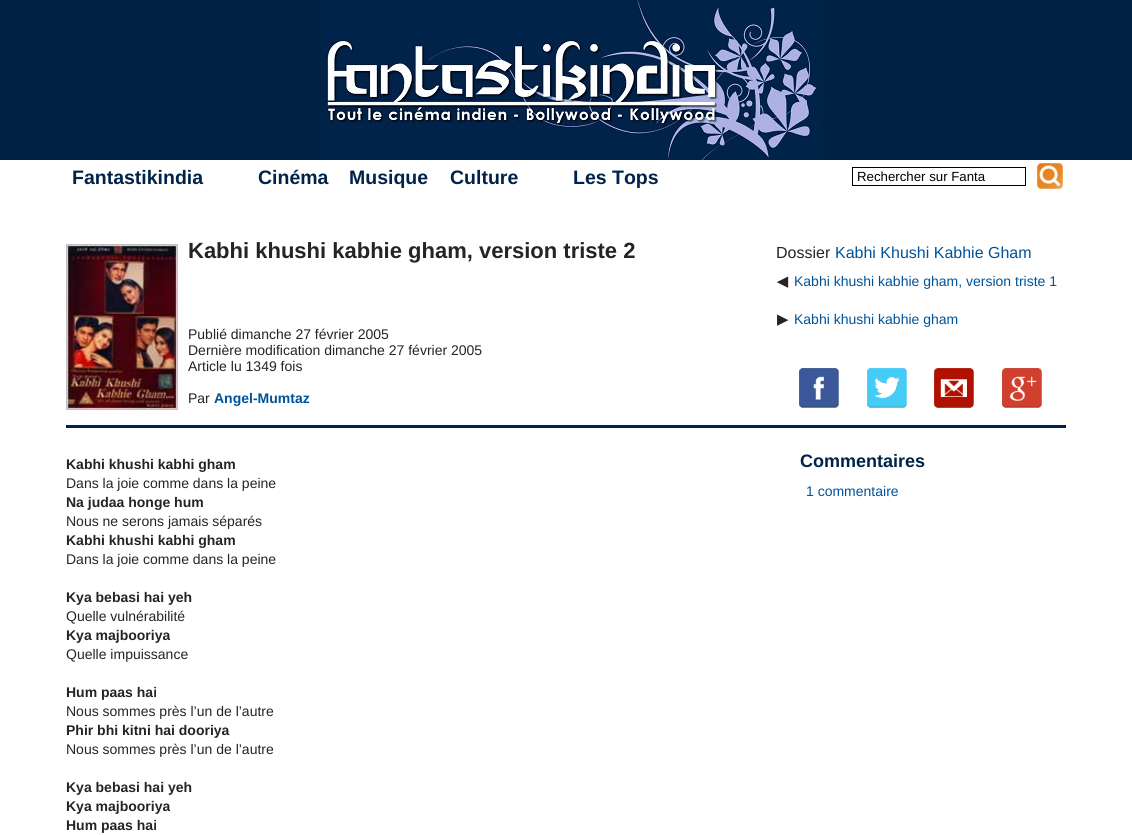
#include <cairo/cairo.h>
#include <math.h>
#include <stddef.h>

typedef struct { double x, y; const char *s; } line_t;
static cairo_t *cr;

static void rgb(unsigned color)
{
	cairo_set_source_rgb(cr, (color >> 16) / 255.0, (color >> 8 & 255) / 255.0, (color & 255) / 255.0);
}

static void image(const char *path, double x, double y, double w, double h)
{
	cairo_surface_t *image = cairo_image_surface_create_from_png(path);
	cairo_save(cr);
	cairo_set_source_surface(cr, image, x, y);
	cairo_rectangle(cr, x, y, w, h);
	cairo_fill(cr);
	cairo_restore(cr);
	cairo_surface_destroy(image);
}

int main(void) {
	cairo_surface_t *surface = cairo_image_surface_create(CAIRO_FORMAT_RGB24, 1132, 835);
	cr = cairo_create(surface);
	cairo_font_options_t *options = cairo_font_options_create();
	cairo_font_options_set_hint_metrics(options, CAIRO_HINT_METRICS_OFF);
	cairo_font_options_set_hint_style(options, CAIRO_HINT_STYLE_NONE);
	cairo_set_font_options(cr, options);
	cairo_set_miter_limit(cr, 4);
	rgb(0xffffff);
	cairo_paint(cr);
	rgb(0x002345);
	cairo_rectangle(cr, 0, 0, 1132, 160);
	cairo_fill(cr);
	image("img/1.png", 321, 0, 497, 160);
	cairo_rectangle(cr, 852.5, 167.5, 173, 18);
	rgb(0x000000);
	cairo_set_line_width(cr, 1);
	cairo_stroke(cr);
	image("img/2.png", 1037, 163, 26, 26);
	rgb(0x002349);
	cairo_rectangle(cr, 66, 425, 1000, 3);
	cairo_fill(cr);
	cairo_rectangle(cr, 66.5, 244.5, 111, 165);
	rgb(0xc0c0c0);
	cairo_stroke(cr);
	image("img/3.png", 67, 245, 110, 164);
	image("img/4.png", 799, 368, 40, 40);
	image("img/5.png", 867, 368, 40, 40);
	image("img/6.png", 934, 368, 40, 40);
	image("img/7.png", 1002, 368, 40, 40);
	cairo_select_font_face(cr, "Liberation Sans", CAIRO_FONT_SLANT_NORMAL, CAIRO_FONT_WEIGHT_BOLD);
	cairo_set_font_size(cr, 19.5);
	rgb(0x002349);
	{
		static const line_t items[] = {
			{72, 184, "Fantastikindia"},
			{258, 184, "Cinéma"},
			{349, 184, "Musique"},
			{450, 184, "Culture"},
			{573, 184, "Les Tops"},
		};
		for (size_t i = 0; i < sizeof items / sizeof *items; i++) {
			cairo_move_to(cr, items[i].x, items[i].y);
			cairo_show_text(cr, items[i].s);
		}
	}
	cairo_select_font_face(cr, "Liberation Sans", CAIRO_FONT_SLANT_NORMAL, CAIRO_FONT_WEIGHT_NORMAL);
	cairo_set_font_size(cr, 13.25);
	rgb(0x000000);
	cairo_move_to(cr, 857, 181);
	cairo_show_text(cr, "Rechercher sur Fanta");
	cairo_select_font_face(cr, "Liberation Sans", CAIRO_FONT_SLANT_NORMAL, CAIRO_FONT_WEIGHT_BOLD);
	cairo_set_font_size(cr, 22);
	rgb(0x242424);
	cairo_move_to(cr, 188, 258);
	cairo_show_text(cr, "Kabhi khushi kabhie gham, version triste 2");
	cairo_select_font_face(cr, "Liberation Sans", CAIRO_FONT_SLANT_NORMAL, CAIRO_FONT_WEIGHT_NORMAL);
	cairo_set_font_size(cr, 14);
	{
		static const line_t items[] = {
			{188, 339, "Publié dimanche 27 février 2005"},
			{188, 355, "Dernière modification dimanche 27 février 2005"},
			{188, 371, "Article lu 1349 fois"},
			{188, 403, "Par"},
		};
		for (size_t i = 0; i < sizeof items / sizeof *items; i++) {
			cairo_move_to(cr, items[i].x, items[i].y);
			cairo_show_text(cr, items[i].s);
		}
	}
	cairo_select_font_face(cr, "Liberation Sans", CAIRO_FONT_SLANT_NORMAL, CAIRO_FONT_WEIGHT_BOLD);
	rgb(0x005399);
	cairo_move_to(cr, 214, 403);
	cairo_show_text(cr, "Angel-Mumtaz");
	cairo_select_font_face(cr, "Liberation Sans", CAIRO_FONT_SLANT_NORMAL, CAIRO_FONT_WEIGHT_NORMAL);
	cairo_set_font_size(cr, 16);
	rgb(0x242424);
	cairo_move_to(cr, 776, 258);
	cairo_show_text(cr, "Dossier");
	rgb(0x005399);
	cairo_move_to(cr, 835, 258);
	cairo_show_text(cr, "Kabhi Khushi Kabhie Gham");
	cairo_select_font_face(cr, "DejaVu Sans", CAIRO_FONT_SLANT_NORMAL, CAIRO_FONT_WEIGHT_BOLD);
	cairo_set_font_size(cr, 14);
	rgb(0x242424);
	cairo_move_to(cr, 777, 286);
	cairo_show_text(cr, "◀");
	cairo_select_font_face(cr, "Liberation Sans", CAIRO_FONT_SLANT_NORMAL, CAIRO_FONT_WEIGHT_NORMAL);
	rgb(0x005399);
	cairo_move_to(cr, 794, 286);
	cairo_show_text(cr, "Kabhi khushi kabhie gham, version triste 1");
	cairo_select_font_face(cr, "DejaVu Sans", CAIRO_FONT_SLANT_NORMAL, CAIRO_FONT_WEIGHT_BOLD);
	rgb(0x242424);
	cairo_move_to(cr, 777, 324);
	cairo_show_text(cr, "▶");
	cairo_select_font_face(cr, "Liberation Sans", CAIRO_FONT_SLANT_NORMAL, CAIRO_FONT_WEIGHT_NORMAL);
	rgb(0x005399);
	cairo_move_to(cr, 794, 324);
	cairo_show_text(cr, "Kabhi khushi kabhie gham");
	cairo_select_font_face(cr, "Liberation Sans", CAIRO_FONT_SLANT_NORMAL, CAIRO_FONT_WEIGHT_BOLD);
	rgb(0x242424);
	cairo_move_to(cr, 66, 469);
	cairo_show_text(cr, "Kabhi khushi kabhi gham");
	cairo_select_font_face(cr, "Liberation Sans", CAIRO_FONT_SLANT_NORMAL, CAIRO_FONT_WEIGHT_NORMAL);
	cairo_move_to(cr, 66, 488);
	cairo_show_text(cr, "Dans la joie comme dans la peine");
	cairo_select_font_face(cr, "Liberation Sans", CAIRO_FONT_SLANT_NORMAL, CAIRO_FONT_WEIGHT_BOLD);
	cairo_move_to(cr, 66, 507);
	cairo_show_text(cr, "Na judaa honge hum");
	cairo_select_font_face(cr, "Liberation Sans", CAIRO_FONT_SLANT_NORMAL, CAIRO_FONT_WEIGHT_NORMAL);
	cairo_move_to(cr, 66, 526);
	cairo_show_text(cr, "Nous ne serons jamais séparés");
	cairo_select_font_face(cr, "Liberation Sans", CAIRO_FONT_SLANT_NORMAL, CAIRO_FONT_WEIGHT_BOLD);
	cairo_move_to(cr, 66, 545);
	cairo_show_text(cr, "Kabhi khushi kabhi gham");
	cairo_select_font_face(cr, "Liberation Sans", CAIRO_FONT_SLANT_NORMAL, CAIRO_FONT_WEIGHT_NORMAL);
	cairo_move_to(cr, 66, 564);
	cairo_show_text(cr, "Dans la joie comme dans la peine");
	cairo_select_font_face(cr, "Liberation Sans", CAIRO_FONT_SLANT_NORMAL, CAIRO_FONT_WEIGHT_BOLD);
	cairo_move_to(cr, 66, 602);
	cairo_show_text(cr, "Kya bebasi hai yeh");
	cairo_select_font_face(cr, "Liberation Sans", CAIRO_FONT_SLANT_NORMAL, CAIRO_FONT_WEIGHT_NORMAL);
	cairo_move_to(cr, 66, 621);
	cairo_show_text(cr, "Quelle vulnérabilité");
	cairo_select_font_face(cr, "Liberation Sans", CAIRO_FONT_SLANT_NORMAL, CAIRO_FONT_WEIGHT_BOLD);
	cairo_move_to(cr, 66, 640);
	cairo_show_text(cr, "Kya majbooriya");
	cairo_select_font_face(cr, "Liberation Sans", CAIRO_FONT_SLANT_NORMAL, CAIRO_FONT_WEIGHT_NORMAL);
	cairo_move_to(cr, 66, 659);
	cairo_show_text(cr, "Quelle impuissance");
	cairo_select_font_face(cr, "Liberation Sans", CAIRO_FONT_SLANT_NORMAL, CAIRO_FONT_WEIGHT_BOLD);
	cairo_move_to(cr, 66, 697);
	cairo_show_text(cr, "Hum paas hai");
	cairo_select_font_face(cr, "Liberation Sans", CAIRO_FONT_SLANT_NORMAL, CAIRO_FONT_WEIGHT_NORMAL);
	cairo_move_to(cr, 66, 716);
	cairo_show_text(cr, "Nous sommes près l’un de l’autre");
	cairo_select_font_face(cr, "Liberation Sans", CAIRO_FONT_SLANT_NORMAL, CAIRO_FONT_WEIGHT_BOLD);
	cairo_move_to(cr, 66, 735);
	cairo_show_text(cr, "Phir bhi kitni hai dooriya");
	cairo_select_font_face(cr, "Liberation Sans", CAIRO_FONT_SLANT_NORMAL, CAIRO_FONT_WEIGHT_NORMAL);
	cairo_move_to(cr, 66, 754);
	cairo_show_text(cr, "Nous sommes près l’un de l’autre");
	cairo_select_font_face(cr, "Liberation Sans", CAIRO_FONT_SLANT_NORMAL, CAIRO_FONT_WEIGHT_BOLD);
	{
		static const line_t items[] = {
			{66, 792, "Kya bebasi hai yeh"},
			{66, 811, "Kya majbooriya"},
			{66, 830, "Hum paas hai"},
		};
		for (size_t i = 0; i < sizeof items / sizeof *items; i++) {
			cairo_move_to(cr, items[i].x, items[i].y);
			cairo_show_text(cr, items[i].s);
		}
	}
	cairo_set_font_size(cr, 18);
	rgb(0x002349);
	cairo_move_to(cr, 800, 467);
	cairo_show_text(cr, "Commentaires");
	cairo_select_font_face(cr, "Liberation Sans", CAIRO_FONT_SLANT_NORMAL, CAIRO_FONT_WEIGHT_NORMAL);
	cairo_set_font_size(cr, 14);
	rgb(0x005399);
	cairo_move_to(cr, 806, 496);
	cairo_show_text(cr, "1 commentaire");
	cairo_surface_write_to_png(surface, "page.png");
	cairo_font_options_destroy(options);
	cairo_destroy(cr);
	cairo_surface_destroy(surface);
	return 0;
}
